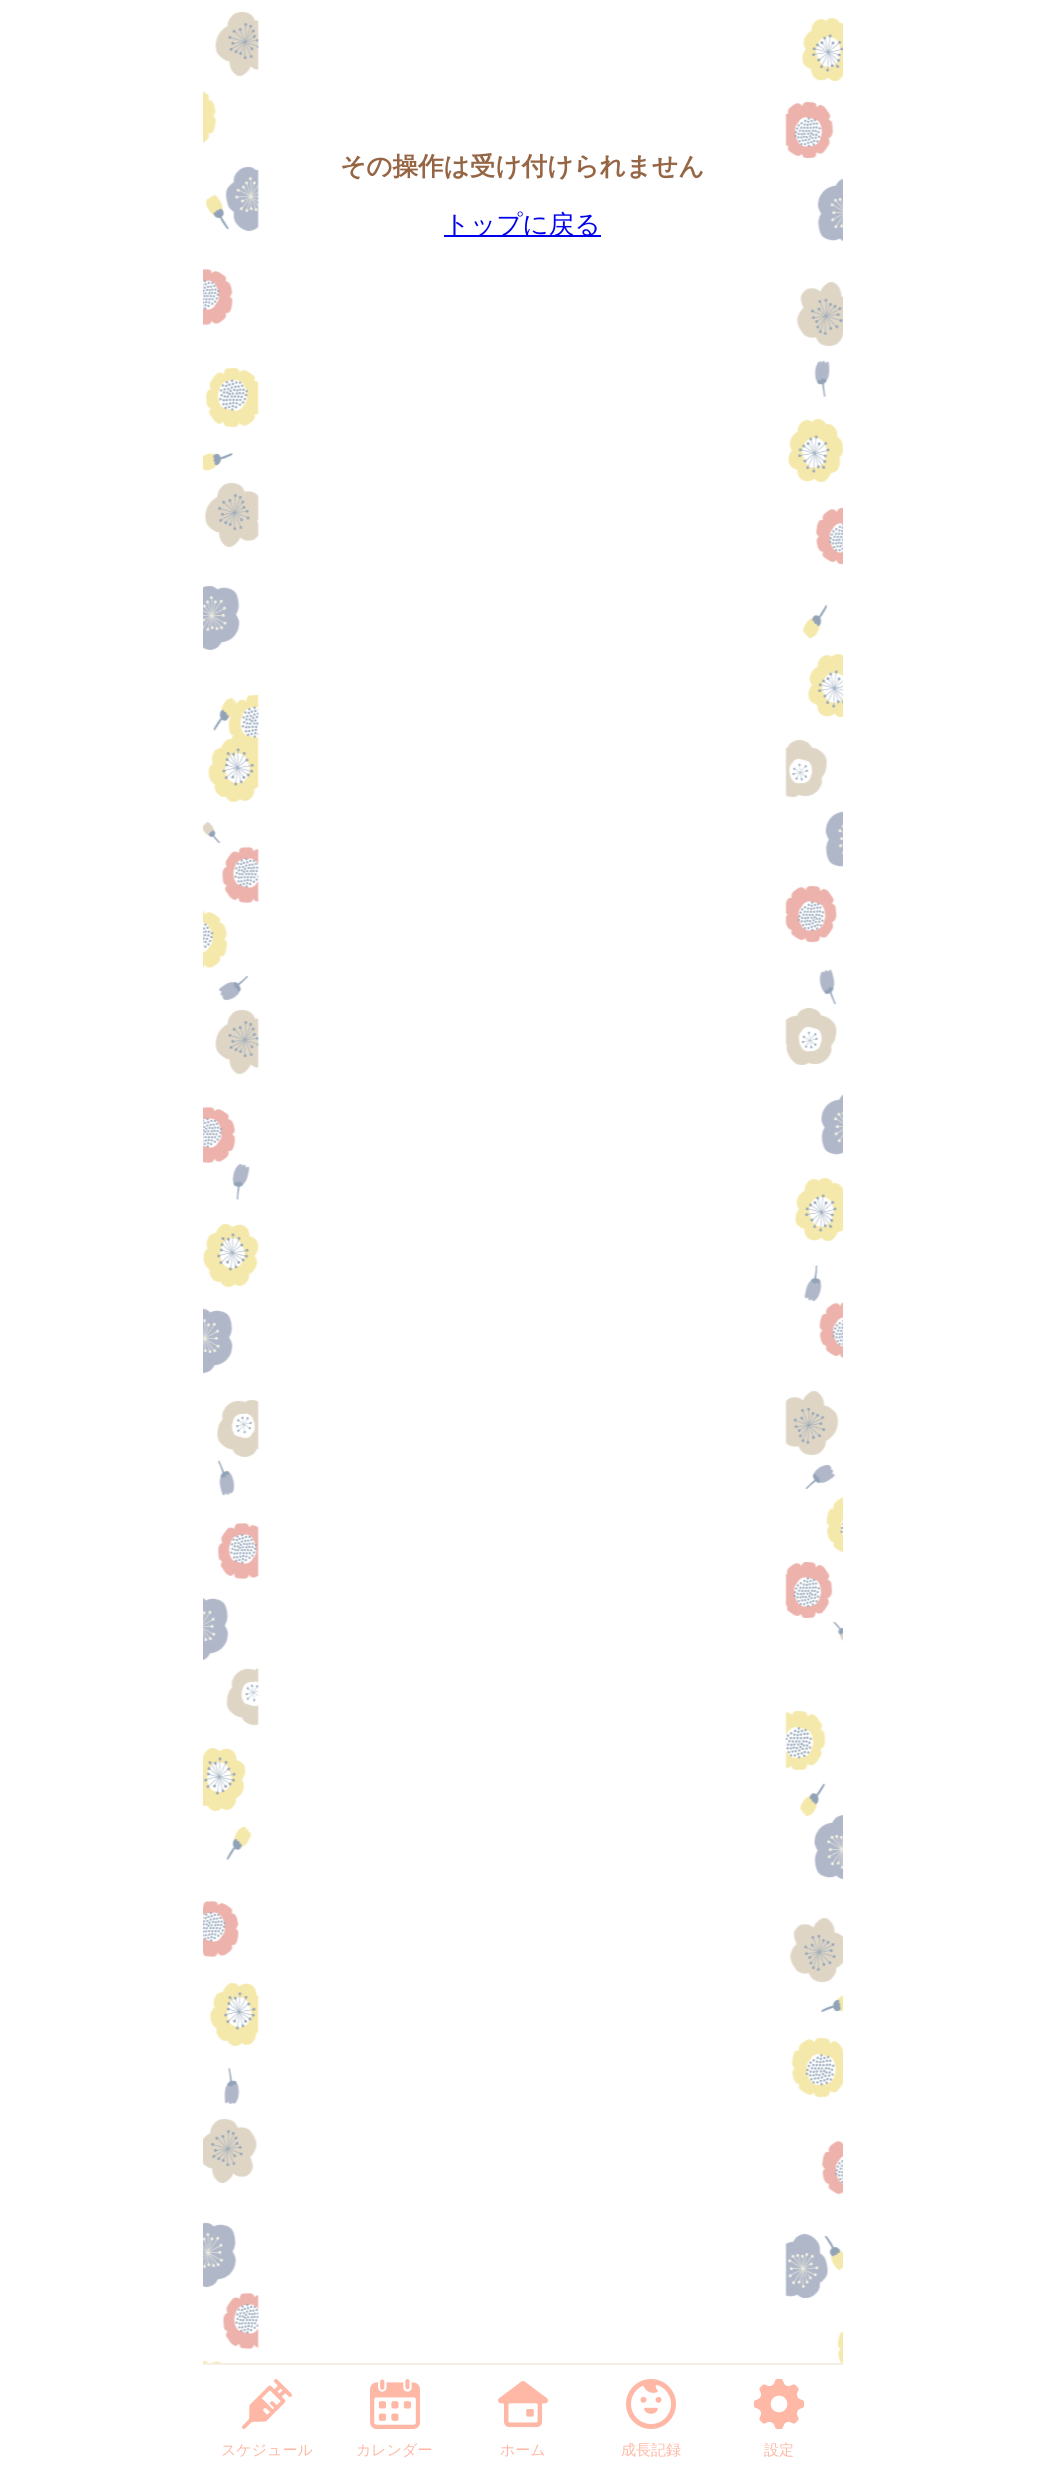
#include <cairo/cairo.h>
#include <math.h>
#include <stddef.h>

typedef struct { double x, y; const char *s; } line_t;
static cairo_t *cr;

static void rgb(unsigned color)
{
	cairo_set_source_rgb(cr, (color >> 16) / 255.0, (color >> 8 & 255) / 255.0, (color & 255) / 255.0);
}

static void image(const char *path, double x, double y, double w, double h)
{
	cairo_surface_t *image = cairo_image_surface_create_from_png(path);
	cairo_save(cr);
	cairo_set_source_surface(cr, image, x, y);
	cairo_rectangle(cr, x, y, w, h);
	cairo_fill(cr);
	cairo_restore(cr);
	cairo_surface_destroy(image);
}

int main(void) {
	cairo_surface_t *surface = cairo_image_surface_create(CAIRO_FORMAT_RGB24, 1045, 2465);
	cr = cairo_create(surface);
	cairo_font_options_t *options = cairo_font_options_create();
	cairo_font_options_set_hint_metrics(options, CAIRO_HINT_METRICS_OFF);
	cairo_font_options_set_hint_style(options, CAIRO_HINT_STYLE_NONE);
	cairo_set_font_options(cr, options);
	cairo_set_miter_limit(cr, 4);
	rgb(0xffffff);
	cairo_paint(cr);
	image("img/1.png", 203, 12, 640, 2351);
	rgb(0x0000ee);
	cairo_rectangle(cr, 444, 235, 157, 2);
	cairo_fill(cr);
	rgb(0xf5eee5);
	cairo_rectangle(cr, 203, 2363, 640, 2);
	cairo_fill(cr);
	image("img/2.png", 242, 2379, 50, 50);
	image("img/3.png", 370, 2379, 50, 50);
	image("img/4.png", 498, 2381, 50, 47);
	image("img/5.png", 626, 2379, 50, 50);
	image("img/6.png", 754, 2379, 50, 50);
	cairo_select_font_face(cr, "WenQuanYi Zen Hei", CAIRO_FONT_SLANT_NORMAL, CAIRO_FONT_WEIGHT_BOLD);
	cairo_set_font_size(cr, 25.6);
	rgb(0x956544);
	cairo_move_to(cr, 340, 175);
	cairo_show_text(cr, "その操作は受け付けられません");
	cairo_select_font_face(cr, "WenQuanYi Zen Hei Medium", CAIRO_FONT_SLANT_NORMAL, CAIRO_FONT_WEIGHT_NORMAL);
	rgb(0x0000ee);
	cairo_move_to(cr, 444, 233);
	cairo_show_text(cr, "トップに戻る");
	cairo_set_font_size(cr, 15);
	rgb(0xffb8a5);
	{
		static const line_t items[] = {
			{221, 2455, "スケジュール"},
			{356, 2455, "カレンダー"},
			{500, 2455, "ホーム"},
			{621, 2455, "成長記録"},
			{764, 2455, "設定"},
		};
		for (size_t i = 0; i < sizeof items / sizeof *items; i++) {
			cairo_move_to(cr, items[i].x, items[i].y);
			cairo_show_text(cr, items[i].s);
		}
	}
	cairo_surface_write_to_png(surface, "page.png");
	cairo_font_options_destroy(options);
	cairo_destroy(cr);
	cairo_surface_destroy(surface);
	return 0;
}
